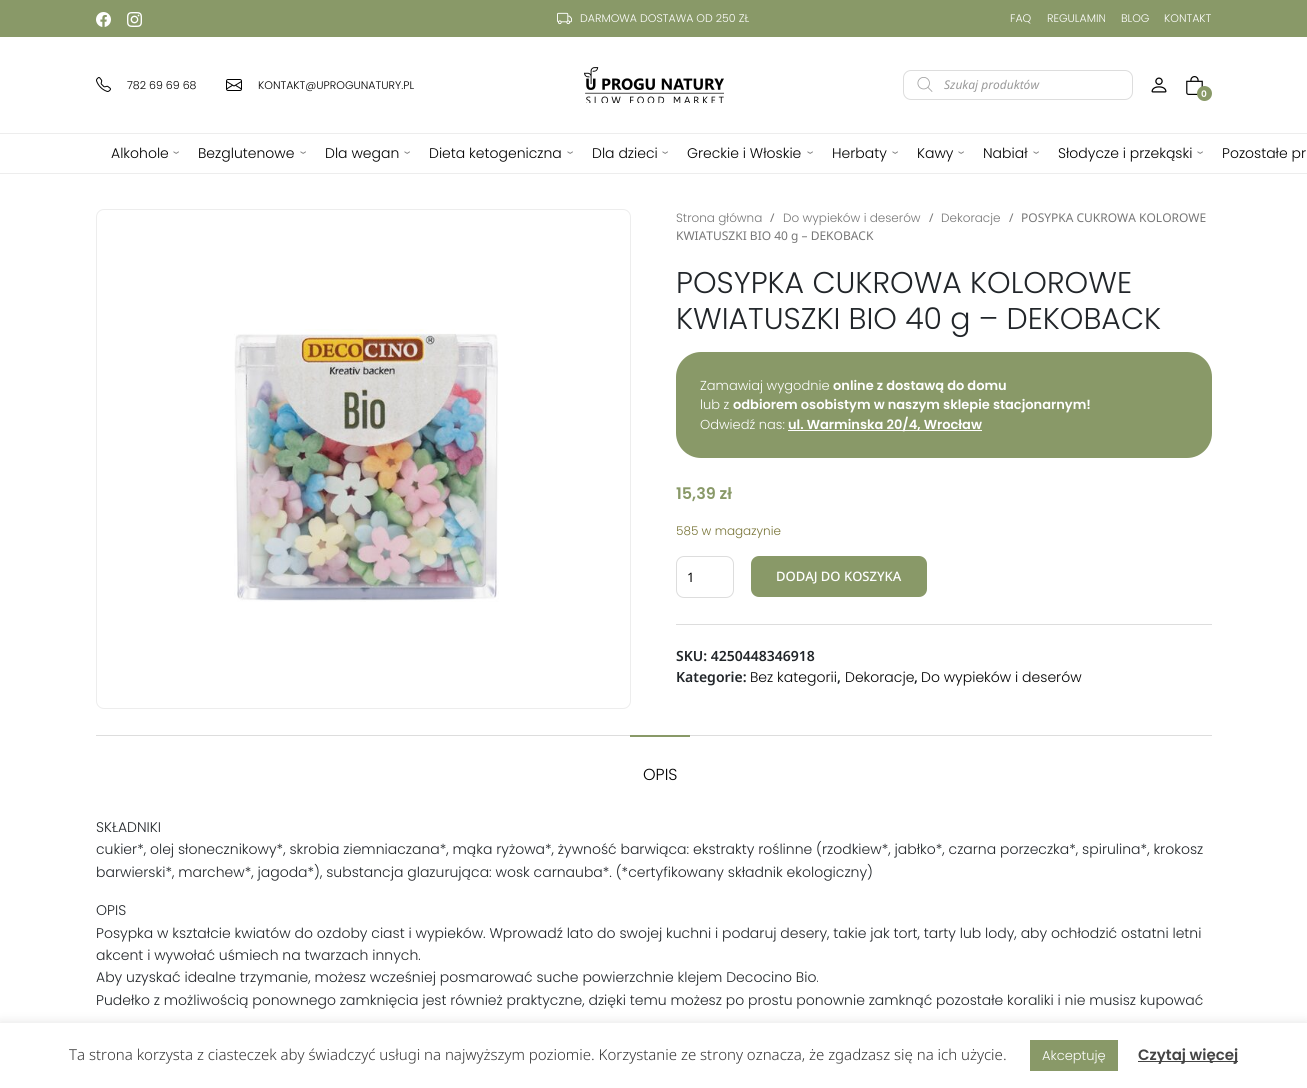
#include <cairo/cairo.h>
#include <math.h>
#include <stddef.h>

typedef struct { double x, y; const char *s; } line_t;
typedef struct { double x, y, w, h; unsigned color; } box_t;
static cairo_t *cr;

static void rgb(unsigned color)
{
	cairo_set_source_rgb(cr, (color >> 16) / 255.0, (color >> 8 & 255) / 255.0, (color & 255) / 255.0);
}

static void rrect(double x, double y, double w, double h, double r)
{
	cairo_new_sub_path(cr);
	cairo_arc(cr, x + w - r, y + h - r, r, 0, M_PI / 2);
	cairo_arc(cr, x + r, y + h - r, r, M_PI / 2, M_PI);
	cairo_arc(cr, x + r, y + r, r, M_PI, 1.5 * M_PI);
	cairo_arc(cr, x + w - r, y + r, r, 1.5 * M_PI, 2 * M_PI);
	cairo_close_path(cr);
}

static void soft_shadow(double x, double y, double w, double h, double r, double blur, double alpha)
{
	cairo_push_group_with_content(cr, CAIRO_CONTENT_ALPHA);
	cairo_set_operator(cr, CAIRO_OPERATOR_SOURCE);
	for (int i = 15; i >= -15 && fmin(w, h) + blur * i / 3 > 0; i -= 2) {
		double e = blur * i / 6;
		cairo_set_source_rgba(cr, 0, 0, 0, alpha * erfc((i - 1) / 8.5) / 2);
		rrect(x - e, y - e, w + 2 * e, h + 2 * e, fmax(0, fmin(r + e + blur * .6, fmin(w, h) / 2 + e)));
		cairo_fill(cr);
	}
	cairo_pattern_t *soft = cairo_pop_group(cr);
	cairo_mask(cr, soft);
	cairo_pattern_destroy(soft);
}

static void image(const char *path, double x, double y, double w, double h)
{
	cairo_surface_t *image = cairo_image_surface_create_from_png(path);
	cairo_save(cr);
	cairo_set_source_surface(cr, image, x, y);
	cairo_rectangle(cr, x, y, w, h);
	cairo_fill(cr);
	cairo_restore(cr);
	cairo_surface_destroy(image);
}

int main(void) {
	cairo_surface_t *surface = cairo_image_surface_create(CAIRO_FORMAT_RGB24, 1307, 1088);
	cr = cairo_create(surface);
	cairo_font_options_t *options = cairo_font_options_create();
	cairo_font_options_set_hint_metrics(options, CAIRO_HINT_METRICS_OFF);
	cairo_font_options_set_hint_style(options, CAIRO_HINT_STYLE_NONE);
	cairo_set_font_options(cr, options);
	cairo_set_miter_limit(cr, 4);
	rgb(0xffffff);
	cairo_paint(cr);
	rgb(0x899968);
	cairo_rectangle(cr, 0, 0, 1307, 37);
	cairo_fill(cr);
	image("img/1.png", 96, 12, 15, 15);
	image("img/2.png", 127, 12, 15, 15);
	image("img/3.png", 557, 12, 15, 13);
	image("img/4.png", 96, 77, 15, 15);
	image("img/5.png", 226, 79, 16, 12);
	image("img/6.png", 584, 67, 140, 36);
	rrect(903.5, 70.5, 229, 29, 7.5);
	rgb(0xdddddd);
	cairo_set_line_width(cr, 1);
	cairo_stroke(cr);
	image("img/7.png", 917, 77, 16, 15);
	image("img/8.png", 1151, 77, 16, 16);
	image("img/9.png", 1186, 76, 17, 19);
	rgb(0x899968);
	cairo_arc(cr, 1204.5, 93.5, 7.5, 0, 2 * M_PI);
	cairo_fill(cr);
	rgb(0xededed);
	cairo_rectangle(cr, 0, 133, 1307, 1);
	cairo_fill(cr);
	cairo_rectangle(cr, 0, 173, 1307, 1);
	cairo_fill(cr);
	rrect(96.5, 209.5, 534, 499, 7.5);
	cairo_stroke(cr);
	image("img/10.png", 234, 329, 265, 273);
	rgb(0x899968);
	rrect(676, 352, 536, 106, 25);
	cairo_fill(cr);
	rgb(0xffffff);
	cairo_rectangle(cr, 788, 430, 194, 1);
	cairo_fill(cr);
	rrect(676.5, 556.5, 57, 41, 7.5);
	rgb(0xdddddd);
	cairo_stroke(cr);
	rgb(0x899968);
	rrect(751, 556, 176, 41, 8);
	cairo_fill(cr);
	{
		static const box_t items[] = {
			{676, 624, 536, 1, 0xdddddd},
			{96, 735, 1116, 1, 0xdddddd},
			{630, 735, 60, 2, 0x899968},
		};
		for (size_t i = 0; i < sizeof items / sizeof *items; i++) {
			rgb(items[i].color);
			cairo_rectangle(cr, items[i].x, items[i].y, items[i].w, items[i].h);
			cairo_fill(cr);
		}
	}
	rgb(0xacabab);
	soft_shadow(0, 1022, 1307, 65, 0, 5, 0.3);
	{
		static const box_t items[] = {
			{0, 1023, 1307, 65, 0xffffff},
			{1030, 1040, 88, 31, 0x899968},
			{1138, 1061, 100, 1, 0x444444},
		};
		for (size_t i = 0; i < sizeof items / sizeof *items; i++) {
			rgb(items[i].color);
			cairo_rectangle(cr, items[i].x, items[i].y, items[i].w, items[i].h);
			cairo_fill(cr);
		}
	}
	cairo_select_font_face(cr, "Poppins Light", CAIRO_FONT_SLANT_NORMAL, CAIRO_FONT_WEIGHT_NORMAL);
	cairo_set_font_size(cr, 11);
	rgb(0xffffff);
	{
		static const line_t items[] = {
			{580, 22, "DARMOWA DOSTAWA OD 250 ZŁ"},
			{1010, 22, "FAQ"},
			{1047, 22, "REGULAMIN"},
			{1121, 22, "BLOG"},
			{1164, 22, "KONTAKT"},
		};
		for (size_t i = 0; i < sizeof items / sizeof *items; i++) {
			cairo_move_to(cr, items[i].x, items[i].y);
			cairo_show_text(cr, items[i].s);
		}
	}
	rgb(0x000000);
	cairo_move_to(cr, 127, 89);
	cairo_show_text(cr, "782 69 69 68");
	cairo_move_to(cr, 258, 89);
	cairo_show_text(cr, "KONTAKT@UPROGUNATURY.PL");
	cairo_select_font_face(cr, "Noto Sans", CAIRO_FONT_SLANT_ITALIC, CAIRO_FONT_WEIGHT_NORMAL);
	cairo_set_font_size(cr, 12);
	rgb(0x999999);
	cairo_move_to(cr, 944, 89);
	cairo_show_text(cr, "Szukaj produktów");
	cairo_select_font_face(cr, "Poppins SemiBold", CAIRO_FONT_SLANT_NORMAL, CAIRO_FONT_WEIGHT_NORMAL);
	cairo_set_font_size(cr, 9);
	rgb(0xffffff);
	cairo_move_to(cr, 1201, 97);
	cairo_show_text(cr, "0");
	cairo_select_font_face(cr, "Poppins Light", CAIRO_FONT_SLANT_NORMAL, CAIRO_FONT_WEIGHT_NORMAL);
	cairo_set_font_size(cr, 14);
	rgb(0x000000);
	cairo_move_to(cr, 111, 158);
	cairo_show_text(cr, "Alkohole");
	cairo_set_font_size(cr, 20);
	rgb(0x808080);
	cairo_move_to(cr, 173, 166);
	cairo_show_text(cr, "ˇ");
	cairo_set_font_size(cr, 14);
	rgb(0x000000);
	cairo_move_to(cr, 198, 158);
	cairo_show_text(cr, "Bezglutenowe");
	cairo_set_font_size(cr, 20);
	rgb(0x808080);
	cairo_move_to(cr, 300, 166);
	cairo_show_text(cr, "ˇ");
	cairo_set_font_size(cr, 14);
	rgb(0x000000);
	cairo_move_to(cr, 325, 158);
	cairo_show_text(cr, "Dla wegan");
	cairo_set_font_size(cr, 20);
	rgb(0x808080);
	cairo_move_to(cr, 404, 166);
	cairo_show_text(cr, "ˇ");
	cairo_set_font_size(cr, 14);
	rgb(0x000000);
	cairo_move_to(cr, 429, 158);
	cairo_show_text(cr, "Dieta ketogeniczna");
	cairo_set_font_size(cr, 20);
	rgb(0x808080);
	cairo_move_to(cr, 567, 166);
	cairo_show_text(cr, "ˇ");
	cairo_set_font_size(cr, 14);
	rgb(0x000000);
	cairo_move_to(cr, 592, 158);
	cairo_show_text(cr, "Dla dzieci");
	cairo_set_font_size(cr, 20);
	rgb(0x808080);
	cairo_move_to(cr, 662, 166);
	cairo_show_text(cr, "ˇ");
	cairo_set_font_size(cr, 14);
	rgb(0x000000);
	cairo_move_to(cr, 687, 158);
	cairo_show_text(cr, "Greckie i Włoskie");
	cairo_set_font_size(cr, 20);
	rgb(0x808080);
	cairo_move_to(cr, 807, 166);
	cairo_show_text(cr, "ˇ");
	cairo_set_font_size(cr, 14);
	rgb(0x000000);
	cairo_move_to(cr, 832, 158);
	cairo_show_text(cr, "Herbaty");
	cairo_set_font_size(cr, 20);
	rgb(0x808080);
	cairo_move_to(cr, 892, 166);
	cairo_show_text(cr, "ˇ");
	cairo_set_font_size(cr, 14);
	rgb(0x000000);
	cairo_move_to(cr, 917, 158);
	cairo_show_text(cr, "Kawy");
	cairo_set_font_size(cr, 20);
	rgb(0x808080);
	cairo_move_to(cr, 958, 166);
	cairo_show_text(cr, "ˇ");
	cairo_set_font_size(cr, 14);
	rgb(0x000000);
	cairo_move_to(cr, 983, 158);
	cairo_show_text(cr, "Nabiał");
	cairo_set_font_size(cr, 20);
	rgb(0x808080);
	cairo_move_to(cr, 1033, 166);
	cairo_show_text(cr, "ˇ");
	cairo_set_font_size(cr, 14);
	rgb(0x000000);
	cairo_move_to(cr, 1058, 158);
	cairo_show_text(cr, "Słodycze i przekąski");
	cairo_set_font_size(cr, 20);
	rgb(0x808080);
	cairo_move_to(cr, 1197, 166);
	cairo_show_text(cr, "ˇ");
	cairo_set_font_size(cr, 14);
	rgb(0x000000);
	cairo_move_to(cr, 1222, 158);
	cairo_show_text(cr, "Pozostałe pr");
	cairo_set_font_size(cr, 12);
	rgb(0x767676);
	cairo_move_to(cr, 676, 222);
	cairo_show_text(cr, "Strona główna");
	cairo_select_font_face(cr, "Noto Sans", CAIRO_FONT_SLANT_NORMAL, CAIRO_FONT_WEIGHT_NORMAL);
	cairo_move_to(cr, 770, 222);
	cairo_show_text(cr, "/");
	cairo_select_font_face(cr, "Poppins Light", CAIRO_FONT_SLANT_NORMAL, CAIRO_FONT_WEIGHT_NORMAL);
	cairo_move_to(cr, 783, 222);
	cairo_show_text(cr, "Do wypieków i deserów");
	cairo_select_font_face(cr, "Noto Sans", CAIRO_FONT_SLANT_NORMAL, CAIRO_FONT_WEIGHT_NORMAL);
	cairo_move_to(cr, 929, 222);
	cairo_show_text(cr, "/");
	cairo_select_font_face(cr, "Poppins Light", CAIRO_FONT_SLANT_NORMAL, CAIRO_FONT_WEIGHT_NORMAL);
	cairo_move_to(cr, 941, 222);
	cairo_show_text(cr, "Dekoracje");
	cairo_select_font_face(cr, "Noto Sans", CAIRO_FONT_SLANT_NORMAL, CAIRO_FONT_WEIGHT_NORMAL);
	{
		static const line_t items[] = {
			{1009, 222, "/"},
			{1021, 222, "POSYPKA CUKROWA KOLOROWE"},
			{676, 240, "KWIATUSZKI BIO 40 g – DEKOBACK"},
		};
		for (size_t i = 0; i < sizeof items / sizeof *items; i++) {
			cairo_move_to(cr, items[i].x, items[i].y);
			cairo_show_text(cr, items[i].s);
		}
	}
	cairo_select_font_face(cr, "Poppins Light", CAIRO_FONT_SLANT_NORMAL, CAIRO_FONT_WEIGHT_NORMAL);
	cairo_set_font_size(cr, 30);
	rgb(0x212529);
	cairo_move_to(cr, 676, 293);
	cairo_show_text(cr, "POSYPKA CUKROWA KOLOROWE");
	cairo_move_to(cr, 676, 329);
	cairo_show_text(cr, "KWIATUSZKI BIO 40 g – DEKOBACK");
	cairo_set_font_size(cr, 13);
	rgb(0xffffff);
	cairo_move_to(cr, 700, 390);
	cairo_show_text(cr, "Zamawiaj wygodnie");
	cairo_select_font_face(cr, "Poppins SemiBold", CAIRO_FONT_SLANT_NORMAL, CAIRO_FONT_WEIGHT_NORMAL);
	cairo_move_to(cr, 833, 390);
	cairo_show_text(cr, "online z dostawą do domu");
	cairo_select_font_face(cr, "Poppins Light", CAIRO_FONT_SLANT_NORMAL, CAIRO_FONT_WEIGHT_NORMAL);
	cairo_move_to(cr, 700, 409);
	cairo_show_text(cr, "lub z");
	cairo_select_font_face(cr, "Poppins SemiBold", CAIRO_FONT_SLANT_NORMAL, CAIRO_FONT_WEIGHT_NORMAL);
	cairo_move_to(cr, 733, 409);
	cairo_show_text(cr, "odbiorem osobistym w naszym sklepie stacjonarnym!");
	cairo_select_font_face(cr, "Poppins Light", CAIRO_FONT_SLANT_NORMAL, CAIRO_FONT_WEIGHT_NORMAL);
	cairo_move_to(cr, 700, 429);
	cairo_show_text(cr, "Odwiedź nas:");
	cairo_select_font_face(cr, "Poppins SemiBold", CAIRO_FONT_SLANT_NORMAL, CAIRO_FONT_WEIGHT_NORMAL);
	cairo_move_to(cr, 788, 429);
	cairo_show_text(cr, "ul. Warminska 20/4, Wrocław");
	cairo_set_font_size(cr, 16);
	rgb(0x899968);
	cairo_move_to(cr, 676, 499);
	cairo_show_text(cr, "15,39 zł");
	cairo_select_font_face(cr, "Poppins Light", CAIRO_FONT_SLANT_NORMAL, CAIRO_FONT_WEIGHT_NORMAL);
	cairo_set_font_size(cr, 12);
	rgb(0x777335);
	cairo_move_to(cr, 676, 535);
	cairo_show_text(cr, "585 w magazynie");
	cairo_select_font_face(cr, "Noto Sans", CAIRO_FONT_SLANT_NORMAL, CAIRO_FONT_WEIGHT_NORMAL);
	cairo_set_font_size(cr, 13);
	rgb(0x000000);
	cairo_move_to(cr, 687, 582);
	cairo_show_text(cr, "1");
	cairo_select_font_face(cr, "Noto Sans Medium", CAIRO_FONT_SLANT_NORMAL, CAIRO_FONT_WEIGHT_NORMAL);
	rgb(0xffffff);
	cairo_move_to(cr, 776, 581);
	cairo_show_text(cr, "DODAJ DO KOSZYKA");
	cairo_select_font_face(cr, "Noto Sans SemiBold", CAIRO_FONT_SLANT_NORMAL, CAIRO_FONT_WEIGHT_NORMAL);
	cairo_set_font_size(cr, 14);
	rgb(0x212529);
	cairo_move_to(cr, 676, 661);
	cairo_show_text(cr, "SKU: 4250448346918");
	cairo_move_to(cr, 676, 682);
	cairo_show_text(cr, "Kategorie:");
	cairo_select_font_face(cr, "Poppins Light", CAIRO_FONT_SLANT_NORMAL, CAIRO_FONT_WEIGHT_NORMAL);
	rgb(0x000000);
	cairo_move_to(cr, 750, 682);
	cairo_show_text(cr, "Bez kategorii");
	cairo_select_font_face(cr, "Noto Sans SemiBold", CAIRO_FONT_SLANT_NORMAL, CAIRO_FONT_WEIGHT_NORMAL);
	rgb(0x212529);
	cairo_move_to(cr, 837, 682);
	cairo_show_text(cr, ",");
	cairo_select_font_face(cr, "Poppins Light", CAIRO_FONT_SLANT_NORMAL, CAIRO_FONT_WEIGHT_NORMAL);
	rgb(0x000000);
	cairo_move_to(cr, 845, 682);
	cairo_show_text(cr, "Dekoracje");
	cairo_select_font_face(cr, "Noto Sans SemiBold", CAIRO_FONT_SLANT_NORMAL, CAIRO_FONT_WEIGHT_NORMAL);
	rgb(0x212529);
	cairo_move_to(cr, 914, 682);
	cairo_show_text(cr, ",");
	cairo_select_font_face(cr, "Poppins Light", CAIRO_FONT_SLANT_NORMAL, CAIRO_FONT_WEIGHT_NORMAL);
	rgb(0x000000);
	cairo_move_to(cr, 921, 682);
	cairo_show_text(cr, "Do wypieków i deserów");
	cairo_set_font_size(cr, 16);
	cairo_move_to(cr, 643, 780);
	cairo_show_text(cr, "OPIS");
	cairo_set_font_size(cr, 14);
	rgb(0x212529);
	{
		static const line_t items[] = {
			{96, 832, "SKŁADNIKI"},
			{96, 854, "cukier*, olej słonecznikowy*, skrobia ziemniaczana*, mąka ryżowa*, żywność barwiąca: ekstrakty roślinne (rzodkiew*, jabłko*, czarna porzeczka*, spirulina*, krokosz"},
			{96, 877, "barwierski*, marchew*, jagoda*), substancja glazurująca: wosk carnauba*. (*certyfikowany składnik ekologiczny)"},
			{96, 915, "OPIS"},
			{96, 938, "Posypka w kształcie kwiatów do ozdoby ciast i wypieków. Wprowadź lato do swojej kuchni i podaruj desery, takie jak tort, tarty lub lody, aby ochłodzić ostatni letni"},
			{96, 960, "akcent i wywołać uśmiech na twarzach innych."},
			{96, 982, "Aby uzyskać idealne trzymanie, możesz wcześniej posmarować suche powierzchnie klejem Decocino Bio."},
			{96, 1005, "Pudełko z możliwością ponownego zamknięcia jest również praktyczne, dzięki temu możesz po prostu ponownie zamknąć pozostałe koraliki i nie musisz kupować"},
		};
		for (size_t i = 0; i < sizeof items / sizeof *items; i++) {
			cairo_move_to(cr, items[i].x, items[i].y);
			cairo_show_text(cr, items[i].s);
		}
	}
	cairo_select_font_face(cr, "Noto Sans Light", CAIRO_FONT_SLANT_NORMAL, CAIRO_FONT_WEIGHT_NORMAL);
	cairo_set_font_size(cr, 15);
	rgb(0x333333);
	cairo_move_to(cr, 69, 1060);
	cairo_show_text(cr, "Ta strona korzysta z ciasteczek aby świadczyć usługi na najwyższym poziomie. Korzystanie ze strony oznacza, że zgadzasz się na ich użycie.");
	cairo_select_font_face(cr, "Poppins Light", CAIRO_FONT_SLANT_NORMAL, CAIRO_FONT_WEIGHT_NORMAL);
	cairo_set_font_size(cr, 13);
	rgb(0xffffff);
	cairo_move_to(cr, 1042, 1060);
	cairo_show_text(cr, "Akceptuję");
	cairo_select_font_face(cr, "Poppins SemiBold", CAIRO_FONT_SLANT_NORMAL, CAIRO_FONT_WEIGHT_NORMAL);
	cairo_set_font_size(cr, 15);
	rgb(0x444444);
	cairo_move_to(cr, 1138, 1060);
	cairo_show_text(cr, "Czytaj więcej");
	cairo_surface_write_to_png(surface, "page.png");
	cairo_font_options_destroy(options);
	cairo_destroy(cr);
	cairo_surface_destroy(surface);
	return 0;
}
